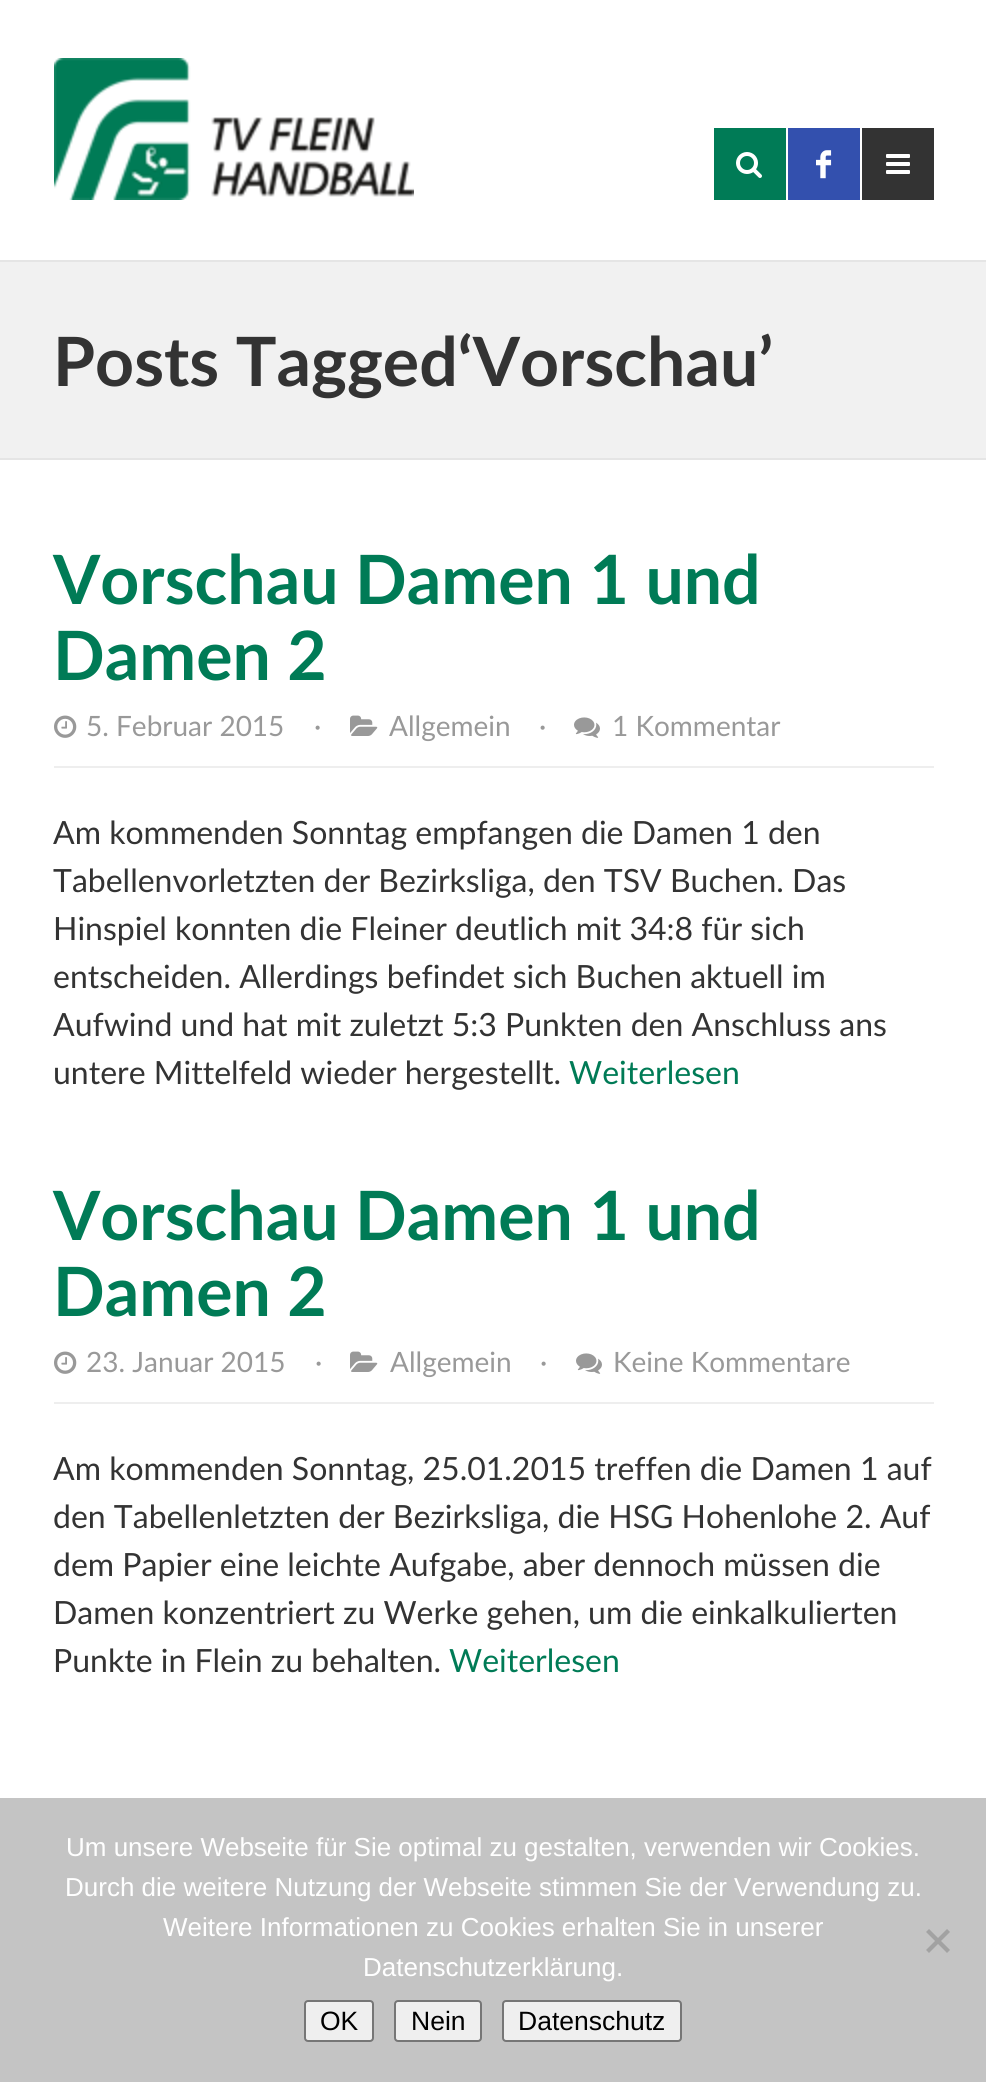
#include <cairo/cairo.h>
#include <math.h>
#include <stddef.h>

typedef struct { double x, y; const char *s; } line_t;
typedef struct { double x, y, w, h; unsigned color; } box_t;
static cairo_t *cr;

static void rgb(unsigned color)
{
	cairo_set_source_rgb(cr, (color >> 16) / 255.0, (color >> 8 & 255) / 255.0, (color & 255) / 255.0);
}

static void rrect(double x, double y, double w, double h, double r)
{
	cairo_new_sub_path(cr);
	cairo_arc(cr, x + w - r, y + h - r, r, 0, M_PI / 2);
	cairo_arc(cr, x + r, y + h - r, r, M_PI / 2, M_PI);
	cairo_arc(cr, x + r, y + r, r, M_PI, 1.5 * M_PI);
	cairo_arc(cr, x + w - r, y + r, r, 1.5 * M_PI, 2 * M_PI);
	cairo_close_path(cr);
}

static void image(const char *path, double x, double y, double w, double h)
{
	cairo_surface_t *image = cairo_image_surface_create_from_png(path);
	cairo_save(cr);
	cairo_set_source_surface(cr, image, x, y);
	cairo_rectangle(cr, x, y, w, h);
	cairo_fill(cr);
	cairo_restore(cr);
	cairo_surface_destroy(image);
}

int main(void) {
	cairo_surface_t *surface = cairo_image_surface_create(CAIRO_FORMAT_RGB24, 986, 2082);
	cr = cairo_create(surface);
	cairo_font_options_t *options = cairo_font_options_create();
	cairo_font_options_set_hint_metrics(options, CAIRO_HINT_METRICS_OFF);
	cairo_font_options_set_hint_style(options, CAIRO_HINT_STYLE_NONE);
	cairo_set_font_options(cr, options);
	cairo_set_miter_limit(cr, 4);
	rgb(0xffffff);
	cairo_paint(cr);
	rgb(0xe5e5e5);
	cairo_rectangle(cr, 0, 260, 986, 2);
	cairo_fill(cr);
	image("img/1.png", 54, 58, 360, 142);
	rgb(0x007b56);
	cairo_rectangle(cr, 714, 128, 72, 72);
	cairo_fill(cr);
	image("img/2.png", 736, 152, 26, 26);
	rgb(0x3350ae);
	cairo_rectangle(cr, 788, 128, 72, 72);
	cairo_fill(cr);
	image("img/3.png", 816, 150, 16, 29);
	rgb(0x333333);
	cairo_rectangle(cr, 862, 128, 72, 72);
	cairo_fill(cr);
	image("img/4.png", 886, 154, 24, 20);
	{
		static const box_t items[] = {
			{0, 262, 986, 196, 0xf1f1f1},
			{0, 458, 986, 2, 0xe5e5e5},
			{54, 766, 880, 2, 0xeeeeee},
		};
		for (size_t i = 0; i < sizeof items / sizeof *items; i++) {
			rgb(items[i].color);
			cairo_rectangle(cr, items[i].x, items[i].y, items[i].w, items[i].h);
			cairo_fill(cr);
		}
	}
	image("img/5.png", 54, 715, 23, 23);
	image("img/6.png", 350, 715, 28, 21);
	image("img/7.png", 574, 717, 26, 21);
	cairo_rectangle(cr, 54, 1402, 880, 2);
	cairo_fill(cr);
	image("img/5.png", 54, 1351, 23, 23);
	image("img/6.png", 350, 1351, 28, 21);
	image("img/7.png", 576, 1353, 26, 21);
	rgb(0xc4c4c4);
	cairo_rectangle(cr, 0, 1798, 986, 284);
	cairo_fill(cr);
	rgb(0xa2a2a2);
	cairo_new_path(cr);
	cairo_move_to(cr, 947, 1929);
	cairo_line_to(cr, 950, 1932);
	cairo_line_to(cr, 929, 1953);
	cairo_line_to(cr, 926, 1950);
	cairo_close_path(cr);
	cairo_fill(cr);
	cairo_new_path(cr);
	cairo_move_to(cr, 926, 1932);
	cairo_line_to(cr, 929, 1929);
	cairo_line_to(cr, 950, 1950);
	cairo_line_to(cr, 947, 1953);
	cairo_close_path(cr);
	cairo_fill(cr);
	rgb(0xefefef);
	rrect(305, 2001, 68, 40, 3);
	cairo_fill_preserve(cr);
	rgb(0x767676);
	cairo_stroke(cr);
	rgb(0xefefef);
	rrect(395, 2001, 86, 40, 3);
	cairo_fill_preserve(cr);
	rgb(0x767676);
	cairo_stroke(cr);
	rgb(0xefefef);
	rrect(503, 2001, 178, 40, 3);
	cairo_fill_preserve(cr);
	rgb(0x767676);
	cairo_stroke(cr);
	cairo_select_font_face(cr, "Lato", CAIRO_FONT_SLANT_NORMAL, CAIRO_FONT_WEIGHT_BOLD);
	cairo_set_font_size(cr, 68);
	rgb(0x333333);
	cairo_move_to(cr, 53, 386);
	cairo_show_text(cr, "Posts Tagged‘Vorschau’");
	rgb(0x007b56);
	cairo_move_to(cr, 53, 604);
	cairo_show_text(cr, "Vorschau Damen 1 und");
	cairo_move_to(cr, 53, 680);
	cairo_show_text(cr, "Damen 2");
	cairo_select_font_face(cr, "Lato", CAIRO_FONT_SLANT_NORMAL, CAIRO_FONT_WEIGHT_NORMAL);
	cairo_set_font_size(cr, 28);
	rgb(0x999999);
	{
		static const line_t items[] = {
			{86, 736, "5. Februar 2015"},
			{314, 736, "·"},
			{389, 736, "Allgemein"},
			{539, 736, "·"},
			{612, 736, "1 Kommentar"},
		};
		for (size_t i = 0; i < sizeof items / sizeof *items; i++) {
			cairo_move_to(cr, items[i].x, items[i].y);
			cairo_show_text(cr, items[i].s);
		}
	}
	cairo_set_font_size(cr, 32);
	rgb(0x333333);
	{
		static const line_t items[] = {
			{53, 844, "Am kommenden Sonntag empfangen die Damen 1 den"},
			{53, 892, "Tabellenvorletzten der Bezirksliga, den TSV Buchen. Das"},
			{53, 940, "Hinspiel konnten die Fleiner deutlich mit 34:8 für sich"},
			{53, 988, "entscheiden. Allerdings befindet sich Buchen aktuell im"},
			{53, 1036, "Aufwind und hat mit zuletzt 5:3 Punkten den Anschluss ans"},
			{53, 1084, "untere Mittelfeld wieder hergestellt."},
		};
		for (size_t i = 0; i < sizeof items / sizeof *items; i++) {
			cairo_move_to(cr, items[i].x, items[i].y);
			cairo_show_text(cr, items[i].s);
		}
	}
	rgb(0x007b56);
	cairo_move_to(cr, 569, 1084);
	cairo_show_text(cr, "Weiterlesen");
	cairo_select_font_face(cr, "Lato", CAIRO_FONT_SLANT_NORMAL, CAIRO_FONT_WEIGHT_BOLD);
	cairo_set_font_size(cr, 68);
	cairo_move_to(cr, 53, 1240);
	cairo_show_text(cr, "Vorschau Damen 1 und");
	cairo_move_to(cr, 53, 1316);
	cairo_show_text(cr, "Damen 2");
	cairo_select_font_face(cr, "Lato", CAIRO_FONT_SLANT_NORMAL, CAIRO_FONT_WEIGHT_NORMAL);
	cairo_set_font_size(cr, 28);
	rgb(0x999999);
	{
		static const line_t items[] = {
			{86, 1372, "23. Januar 2015"},
			{315, 1372, "·"},
			{390, 1372, "Allgemein"},
			{540, 1372, "·"},
			{613, 1372, "Keine Kommentare"},
		};
		for (size_t i = 0; i < sizeof items / sizeof *items; i++) {
			cairo_move_to(cr, items[i].x, items[i].y);
			cairo_show_text(cr, items[i].s);
		}
	}
	cairo_set_font_size(cr, 32);
	rgb(0x333333);
	{
		static const line_t items[] = {
			{53, 1480, "Am kommenden Sonntag, 25.01.2015 treffen die Damen 1 auf"},
			{53, 1528, "den Tabellenletzten der Bezirksliga, die HSG Hohenlohe 2. Auf"},
			{53, 1576, "dem Papier eine leichte Aufgabe, aber dennoch müssen die"},
			{53, 1624, "Damen konzentriert zu Werke gehen, um die einkalkulierten"},
			{53, 1672, "Punkte in Flein zu behalten."},
		};
		for (size_t i = 0; i < sizeof items / sizeof *items; i++) {
			cairo_move_to(cr, items[i].x, items[i].y);
			cairo_show_text(cr, items[i].s);
		}
	}
	rgb(0x007b56);
	cairo_move_to(cr, 449, 1672);
	cairo_show_text(cr, "Weiterlesen");
	cairo_select_font_face(cr, "Liberation Sans", CAIRO_FONT_SLANT_NORMAL, CAIRO_FONT_WEIGHT_NORMAL);
	cairo_set_font_size(cr, 26);
	rgb(0xffffff);
	{
		static const line_t items[] = {
			{66, 1856, "Um unsere Webseite für Sie optimal zu gestalten, verwenden wir Cookies."},
			{65, 1896, "Durch die weitere Nutzung der Webseite stimmen Sie der Verwendung zu."},
			{163, 1936, "Weitere Informationen zu Cookies erhalten Sie in unserer"},
			{363, 1976, "Datenschutzerklärung."},
		};
		for (size_t i = 0; i < sizeof items / sizeof *items; i++) {
			cairo_move_to(cr, items[i].x, items[i].y);
			cairo_show_text(cr, items[i].s);
		}
	}
	cairo_set_font_size(cr, 26.5);
	rgb(0x000000);
	{
		static const line_t items[] = {
			{320, 2030, "OK"},
			{411, 2030, "Nein"},
			{518, 2030, "Datenschutz"},
		};
		for (size_t i = 0; i < sizeof items / sizeof *items; i++) {
			cairo_move_to(cr, items[i].x, items[i].y);
			cairo_show_text(cr, items[i].s);
		}
	}
	cairo_surface_write_to_png(surface, "page.png");
	cairo_font_options_destroy(options);
	cairo_destroy(cr);
	cairo_surface_destroy(surface);
	return 0;
}
